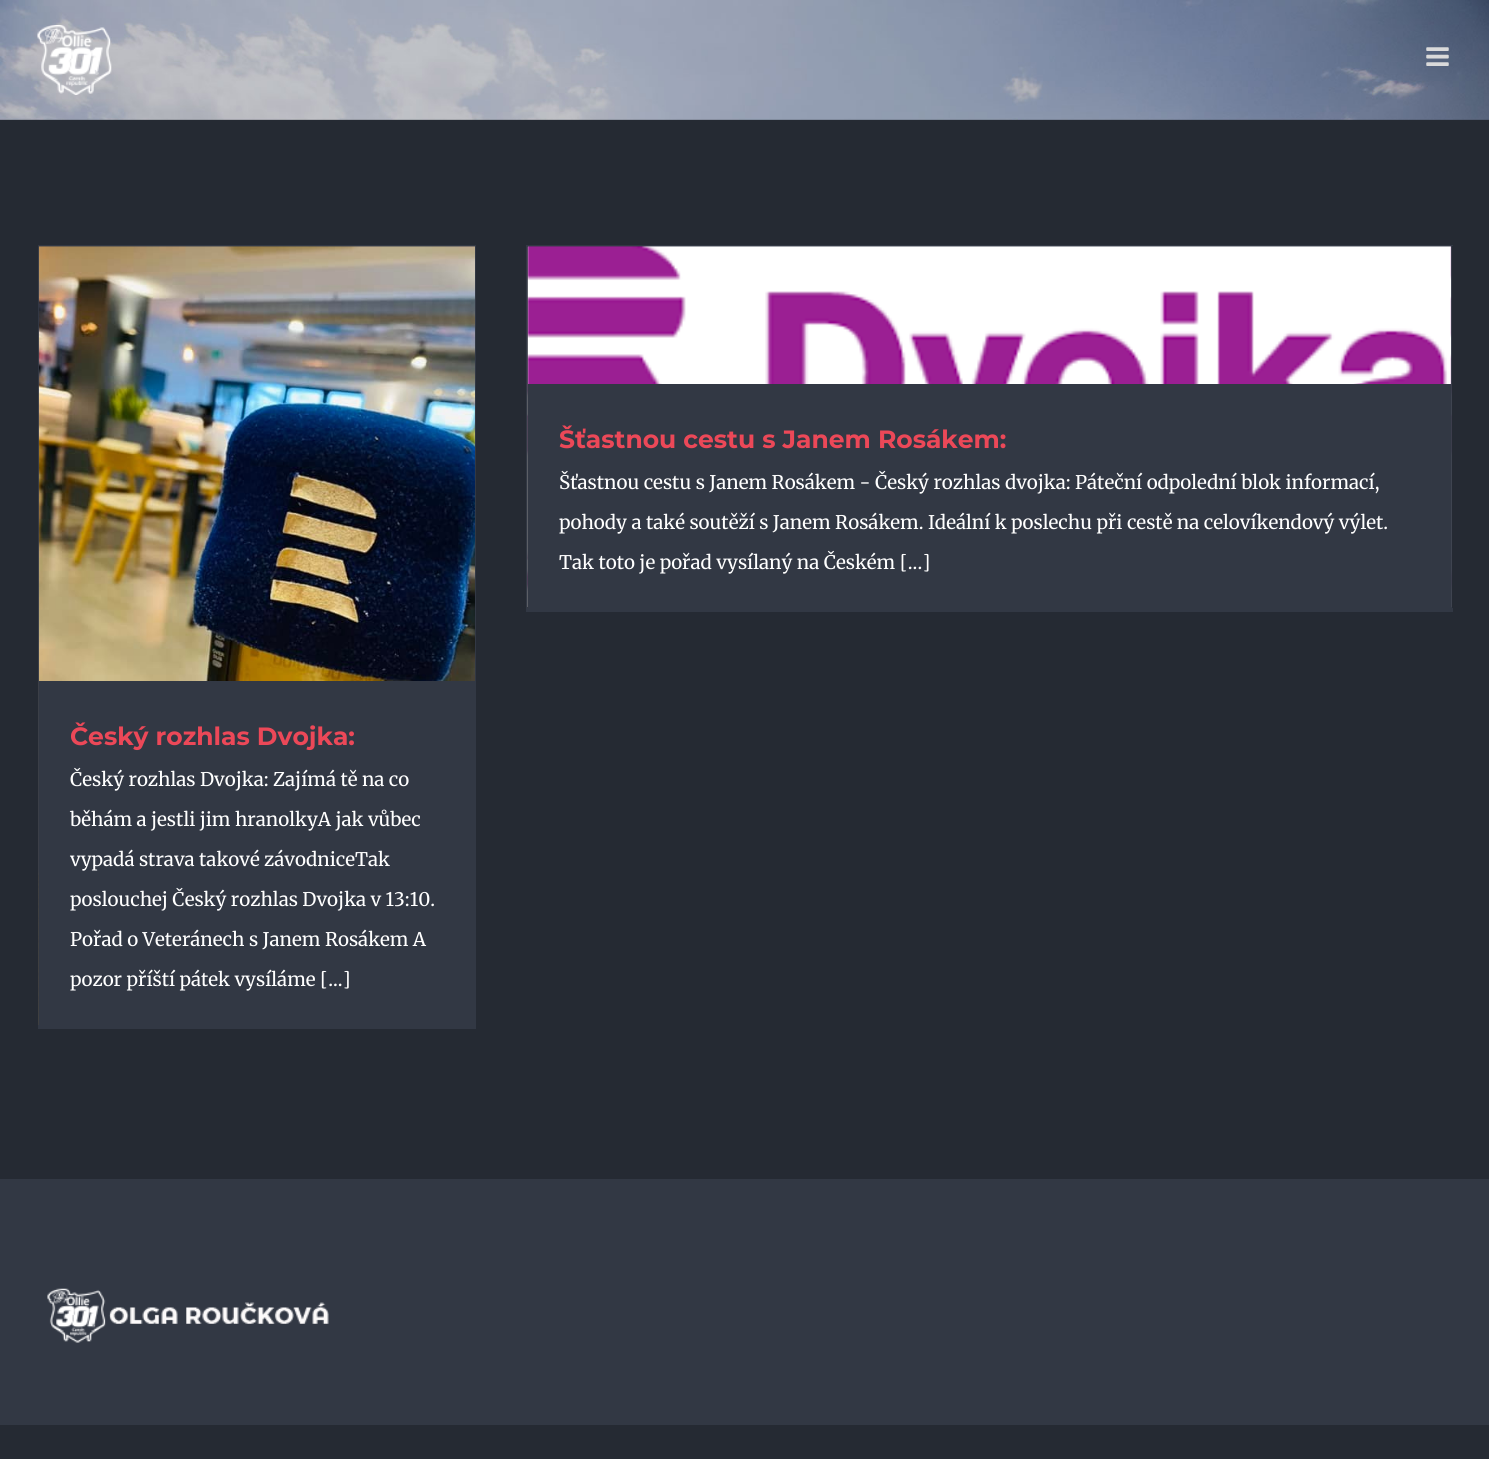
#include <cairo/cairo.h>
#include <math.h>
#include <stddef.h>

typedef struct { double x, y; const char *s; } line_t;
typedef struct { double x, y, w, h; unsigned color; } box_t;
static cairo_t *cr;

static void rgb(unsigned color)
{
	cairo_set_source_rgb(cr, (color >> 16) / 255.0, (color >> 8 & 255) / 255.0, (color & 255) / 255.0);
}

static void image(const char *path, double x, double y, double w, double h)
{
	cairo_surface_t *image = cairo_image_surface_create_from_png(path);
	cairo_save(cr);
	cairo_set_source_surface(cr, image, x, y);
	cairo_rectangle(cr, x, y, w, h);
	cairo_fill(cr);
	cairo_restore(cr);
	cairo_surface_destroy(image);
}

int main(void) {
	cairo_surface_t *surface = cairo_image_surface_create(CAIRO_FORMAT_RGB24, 1489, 1459);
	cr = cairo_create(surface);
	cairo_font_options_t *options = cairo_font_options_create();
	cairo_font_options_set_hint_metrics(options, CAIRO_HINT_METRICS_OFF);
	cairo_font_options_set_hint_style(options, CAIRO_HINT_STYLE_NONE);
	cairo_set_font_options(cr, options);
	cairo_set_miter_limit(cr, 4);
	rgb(0x252a33);
	cairo_paint(cr);
	image("img/1.png", 0, 0, 1489, 120);
	image("img/2.png", 37, 25, 75, 70);
	image("img/3.png", 1426, 47, 23, 19);
	{
		static const box_t items[] = {
			{528, 246, 923, 1, 0x323844},
			{526, 245, 927, 1, 0x323844},
			{1451, 245, 1, 366, 0x323844},
			{526, 608, 927, 4, 0x323844},
			{526, 245, 1, 366, 0x323844},
		};
		for (size_t i = 0; i < sizeof items / sizeof *items; i++) {
			rgb(items[i].color);
			cairo_rectangle(cr, items[i].x, items[i].y, items[i].w, items[i].h);
			cairo_fill(cr);
		}
	}
	image("img/4.png", 527, 246, 925, 362);
	{
		static const box_t items[] = {
			{528, 384, 923, 224, 0x323844},
			{39, 246, 436, 1, 0x323844},
			{38, 245, 438, 1, 0x323844},
			{475, 245, 1, 784, 0x323844},
			{38, 1025, 438, 4, 0x323844},
			{38, 245, 1, 784, 0x323844},
		};
		for (size_t i = 0; i < sizeof items / sizeof *items; i++) {
			rgb(items[i].color);
			cairo_rectangle(cr, items[i].x, items[i].y, items[i].w, items[i].h);
			cairo_fill(cr);
		}
	}
	image("img/5.png", 38, 246, 437, 779);
	cairo_rectangle(cr, 39, 681, 436, 344);
	cairo_fill(cr);
	cairo_rectangle(cr, 0, 1179, 1489, 246);
	cairo_fill(cr);
	image("img/6.png", 47, 1288, 282, 55);
	cairo_select_font_face(cr, "Montserrat", CAIRO_FONT_SLANT_NORMAL, CAIRO_FONT_WEIGHT_BOLD);
	cairo_set_font_size(cr, 25);
	rgb(0xec4858);
	cairo_move_to(cr, 559, 448);
	cairo_show_text(cr, "Šťastnou cestu s Janem Rosákem:");
	cairo_select_font_face(cr, "Merriweather", CAIRO_FONT_SLANT_NORMAL, CAIRO_FONT_WEIGHT_NORMAL);
	cairo_set_font_size(cr, 18.75);
	rgb(0xffffff);
	{
		static const line_t items[] = {
			{559, 489, "Šťastnou cestu s Janem Rosákem - Český rozhlas dvojka: Páteční odpolední blok informací,"},
			{559, 529, "pohody a také soutěží s Janem Rosákem. Ideální k poslechu při cestě na celovíkendový výlet."},
			{559, 569, "Tak toto je pořad vysílaný na Českém [...]"},
		};
		for (size_t i = 0; i < sizeof items / sizeof *items; i++) {
			cairo_move_to(cr, items[i].x, items[i].y);
			cairo_show_text(cr, items[i].s);
		}
	}
	cairo_select_font_face(cr, "Montserrat", CAIRO_FONT_SLANT_NORMAL, CAIRO_FONT_WEIGHT_BOLD);
	cairo_set_font_size(cr, 25);
	rgb(0xec4858);
	cairo_move_to(cr, 70, 745);
	cairo_show_text(cr, "Český rozhlas Dvojka:");
	cairo_select_font_face(cr, "Merriweather", CAIRO_FONT_SLANT_NORMAL, CAIRO_FONT_WEIGHT_NORMAL);
	cairo_set_font_size(cr, 18.75);
	rgb(0xffffff);
	{
		static const line_t items[] = {
			{70, 786, "Český rozhlas Dvojka: Zajímá tě na co"},
			{70, 826, "běhám a jestli jim hranolkyA jak vůbec"},
			{70, 866, "vypadá strava takové závodniceTak"},
			{70, 906, "poslouchej Český rozhlas Dvojka v 13:10."},
			{70, 946, "Pořad o Veteránech s Janem Rosákem A"},
			{70, 986, "pozor příští pátek vysíláme [...]"},
		};
		for (size_t i = 0; i < sizeof items / sizeof *items; i++) {
			cairo_move_to(cr, items[i].x, items[i].y);
			cairo_show_text(cr, items[i].s);
		}
	}
	cairo_surface_write_to_png(surface, "page.png");
	cairo_font_options_destroy(options);
	cairo_destroy(cr);
	cairo_surface_destroy(surface);
	return 0;
}
